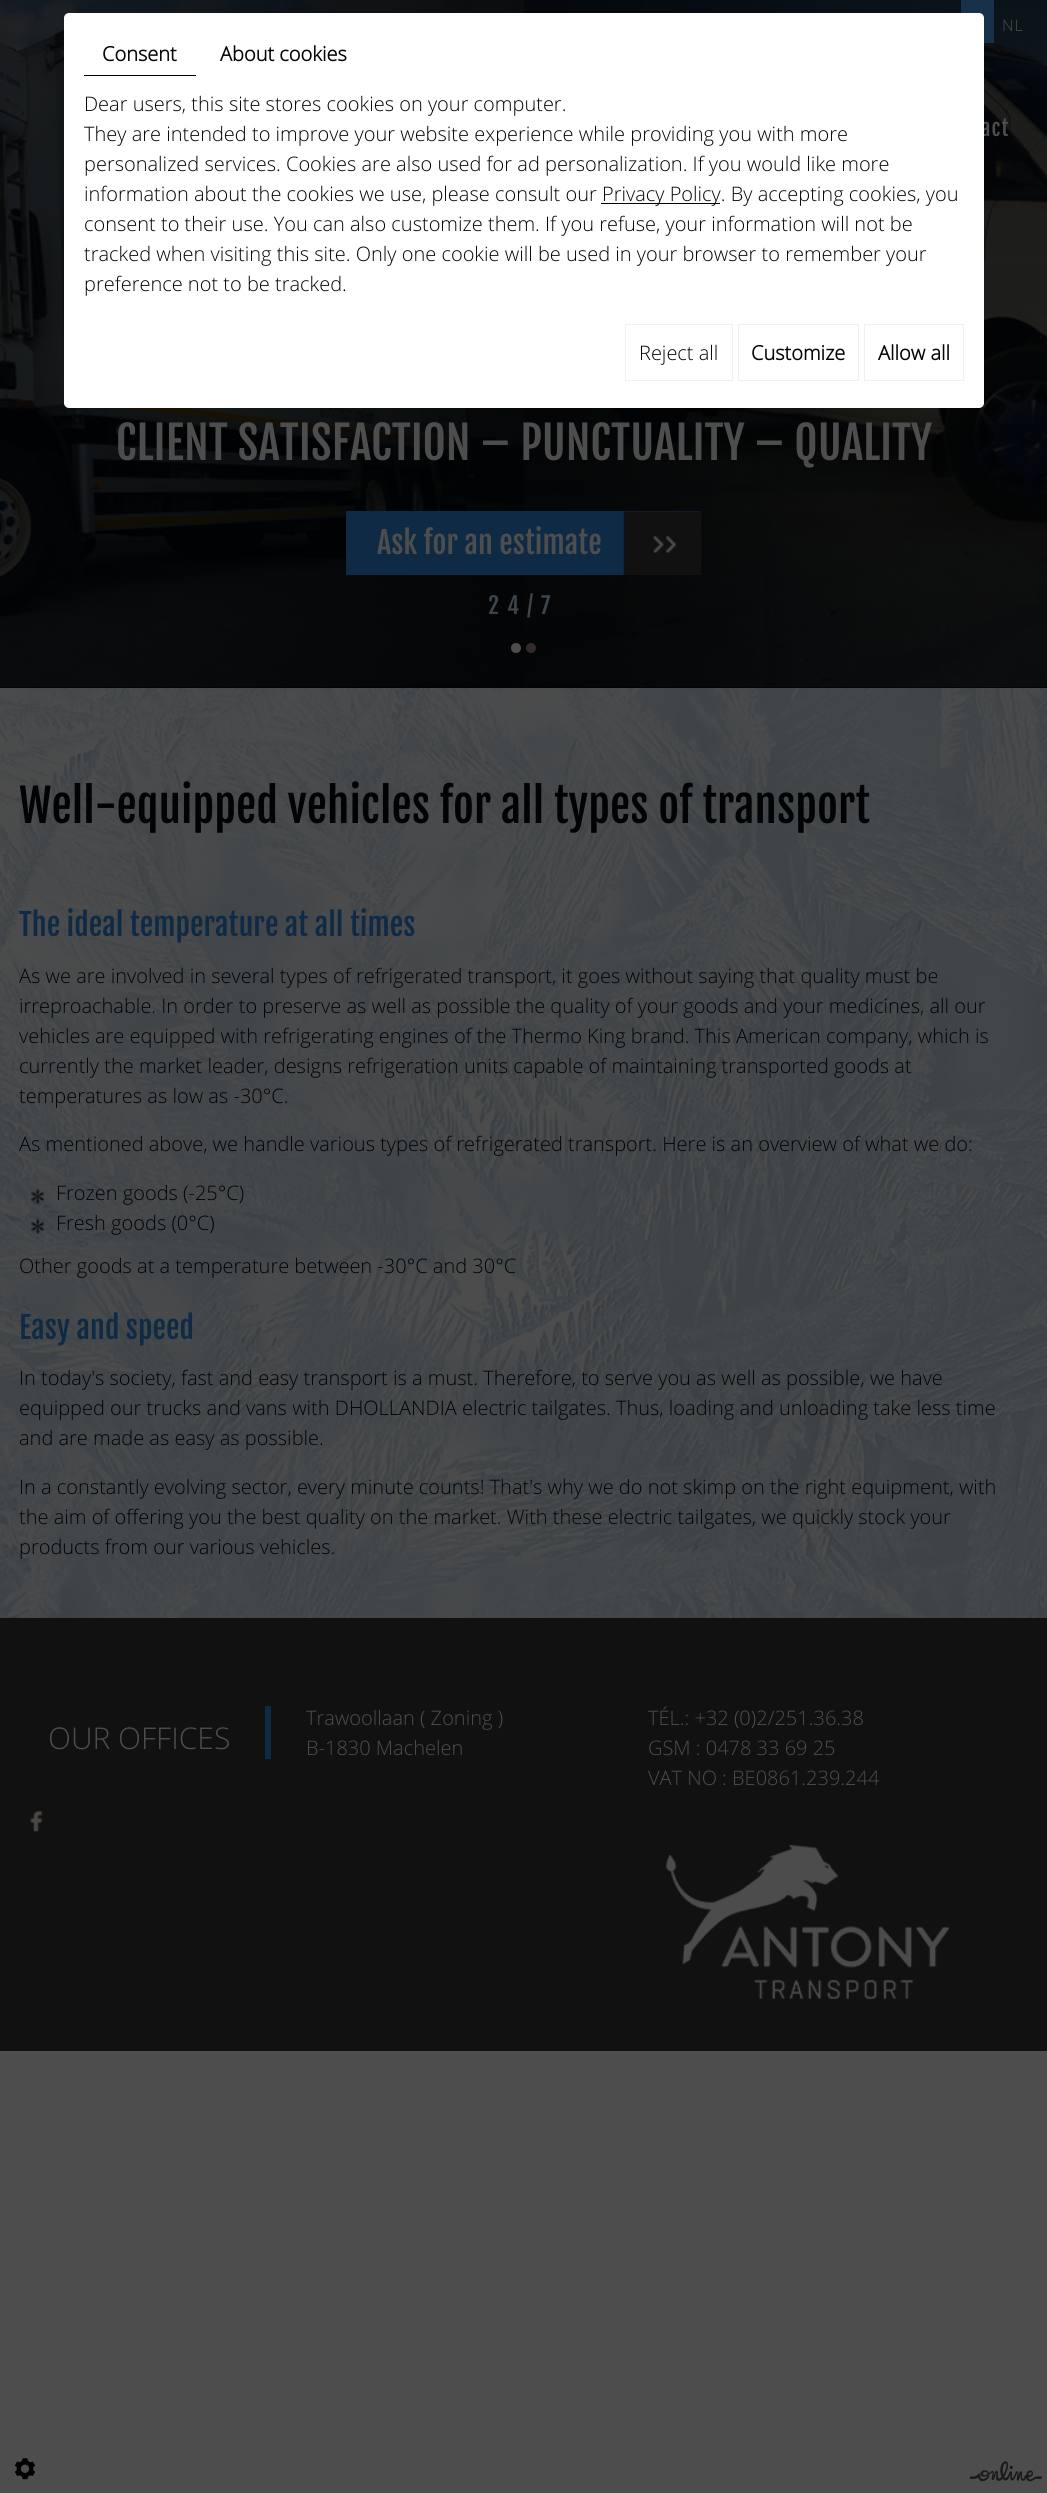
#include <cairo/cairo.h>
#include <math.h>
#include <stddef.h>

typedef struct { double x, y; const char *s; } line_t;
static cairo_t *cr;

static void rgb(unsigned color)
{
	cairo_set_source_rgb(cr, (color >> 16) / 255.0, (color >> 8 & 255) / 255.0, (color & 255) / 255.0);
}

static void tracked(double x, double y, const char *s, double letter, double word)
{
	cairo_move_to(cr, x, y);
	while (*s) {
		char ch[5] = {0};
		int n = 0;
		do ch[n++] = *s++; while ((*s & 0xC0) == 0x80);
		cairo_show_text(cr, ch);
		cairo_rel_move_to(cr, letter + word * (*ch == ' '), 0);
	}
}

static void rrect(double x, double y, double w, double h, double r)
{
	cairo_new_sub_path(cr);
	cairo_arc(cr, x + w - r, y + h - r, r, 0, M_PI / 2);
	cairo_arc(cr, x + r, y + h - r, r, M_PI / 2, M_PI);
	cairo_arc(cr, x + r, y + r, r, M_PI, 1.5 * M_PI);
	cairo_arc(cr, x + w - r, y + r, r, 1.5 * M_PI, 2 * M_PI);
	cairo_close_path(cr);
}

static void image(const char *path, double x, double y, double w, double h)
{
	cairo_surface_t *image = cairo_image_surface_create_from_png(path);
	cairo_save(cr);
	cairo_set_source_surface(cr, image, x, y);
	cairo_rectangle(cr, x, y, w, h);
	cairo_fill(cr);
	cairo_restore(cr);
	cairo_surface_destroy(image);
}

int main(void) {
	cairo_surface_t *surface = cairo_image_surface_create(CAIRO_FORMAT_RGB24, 1047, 2493);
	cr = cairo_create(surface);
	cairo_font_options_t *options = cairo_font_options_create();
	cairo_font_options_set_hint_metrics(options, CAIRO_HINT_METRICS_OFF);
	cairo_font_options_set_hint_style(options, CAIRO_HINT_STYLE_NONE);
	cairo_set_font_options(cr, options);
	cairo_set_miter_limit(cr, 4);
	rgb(0x4d4d4d);
	cairo_paint(cr);
	rgb(0x000000);
	cairo_rectangle(cr, 0, 687, 1047, 1);
	cairo_fill(cr);
	image("img/1.png", 0, 0, 1047, 688);
	cairo_set_source_rgba(cr, 0.004, 0.016, 0.027, 0.57);
	cairo_rectangle(cr, 0, 0, 1047, 688);
	cairo_fill(cr);
	rgb(0x4d4d4d);
	cairo_arc(cr, 516, 648, 5, 0, 2 * M_PI);
	cairo_fill(cr);
	rgb(0x302b2a);
	cairo_arc(cr, 531, 648, 5, 0, 2 * M_PI);
	cairo_fill(cr);
	rgb(0x18314b);
	cairo_rectangle(cr, 961, 0, 33, 43);
	cairo_fill(cr);
	rgb(0x0f2a45);
	cairo_rectangle(cr, 346, 511, 355, 64);
	cairo_fill(cr);
	image("img/2.png", 623, 511, 79, 64);
	image("img/3.png", 0, 688, 1047, 930);
	image("img/4.png", 31, 1188, 13, 16);
	image("img/5.png", 31, 1218, 13, 16);
	rgb(0x111111);
	cairo_rectangle(cr, 0, 1618, 1047, 433);
	cairo_fill(cr);
	rgb(0x0f2a45);
	cairo_rectangle(cr, 265, 1706, 6, 53);
	cairo_fill(cr);
	image("img/6.png", 30, 1811, 13, 21);
	image("img/7.png", 666, 1845, 283, 154);
	image("img/8.png", 14, 2458, 22, 22);
	image("img/9.png", 970, 2461, 72, 21);
	cairo_select_font_face(cr, "Open Sans Light", CAIRO_FONT_SLANT_NORMAL, CAIRO_FONT_WEIGHT_NORMAL);
	cairo_set_font_size(cr, 16);
	rgb(0x4d4d4d);
	tracked(1002, 31, "NL", 1, 0);
	cairo_select_font_face(cr, "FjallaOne", CAIRO_FONT_SLANT_NORMAL, CAIRO_FONT_WEIGHT_NORMAL);
	cairo_set_font_size(cr, 21);
	tracked(981, 136, "act", 1, 0);
	cairo_set_font_size(cr, 45);
	cairo_move_to(cr, 116, 460);
	cairo_show_text(cr, "CLIENT SATISFACTION – PUNCTUALITY – QUALITY");
	cairo_set_font_size(cr, 30);
	cairo_move_to(cr, 377, 554);
	cairo_show_text(cr, "Ask for an estimate");
	cairo_set_font_size(cr, 22.5);
	rgb(0x3d454c);
	tracked(488, 614, "24/7", 8, 0);
	cairo_set_font_size(cr, 45);
	rgb(0x010305);
	cairo_move_to(cr, 19, 823);
	cairo_show_text(cr, "Well-equipped vehicles for all types of transport");
	cairo_set_font_size(cr, 30);
	rgb(0x0f2a45);
	cairo_move_to(cr, 19, 936);
	cairo_show_text(cr, "The ideal temperature at all times");
	cairo_select_font_face(cr, "Open Sans Light", CAIRO_FONT_SLANT_NORMAL, CAIRO_FONT_WEIGHT_NORMAL);
	cairo_set_font_size(cr, 20);
	rgb(0x010305);
	{
		static const line_t items[] = {
			{19, 983, "As we are involved in several types of refrigerated transport, it goes without saying that quality must be"},
			{19, 1013, "irreproachable. In order to preserve as well as possible the quality of your goods and your medicines, all our"},
			{19, 1043, "vehicles are equipped with refrigerating engines of the Thermo King brand. This American company, which is"},
			{19, 1073, "currently the market leader, designs refrigeration units capable of maintaining transported goods at"},
			{19, 1103, "temperatures as low as -30°C."},
			{19, 1151, "As mentioned above, we handle various types of refrigerated transport. Here is an overview of what we do:"},
			{56, 1200, "Frozen goods (-25°C)"},
			{56, 1230, "Fresh goods (0°C)"},
			{19, 1273, "Other goods at a temperature between -30°C and 30°C"},
		};
		for (size_t i = 0; i < sizeof items / sizeof *items; i++) {
			cairo_move_to(cr, items[i].x, items[i].y);
			cairo_show_text(cr, items[i].s);
		}
	}
	cairo_select_font_face(cr, "FjallaOne", CAIRO_FONT_SLANT_NORMAL, CAIRO_FONT_WEIGHT_NORMAL);
	cairo_set_font_size(cr, 30);
	rgb(0x0f2a45);
	cairo_move_to(cr, 19, 1339);
	cairo_show_text(cr, "Easy and speed");
	cairo_select_font_face(cr, "Open Sans Light", CAIRO_FONT_SLANT_NORMAL, CAIRO_FONT_WEIGHT_NORMAL);
	cairo_set_font_size(cr, 20);
	rgb(0x010305);
	{
		static const line_t items[] = {
			{19, 1385, "In today's society, fast and easy transport is a must. Therefore, to serve you as well as possible, we have"},
			{19, 1415, "equipped our trucks and vans with DHOLLANDIA electric tailgates. Thus, loading and unloading take less time"},
			{19, 1445, "and are made as easy as possible."},
			{19, 1494, "In a constantly evolving sector, every minute counts! That's why we do not skimp on the right equipment, with"},
			{19, 1524, "the aim of offering you the best quality on the market. With these electric tailgates, we quickly stock your"},
			{19, 1554, "products from our various vehicles."},
		};
		for (size_t i = 0; i < sizeof items / sizeof *items; i++) {
			cairo_move_to(cr, items[i].x, items[i].y);
			cairo_show_text(cr, items[i].s);
		}
	}
	cairo_set_font_size(cr, 30);
	rgb(0x4d4d4d);
	cairo_move_to(cr, 48, 1749);
	cairo_show_text(cr, "OUR OFFICES");
	cairo_set_font_size(cr, 20);
	{
		static const line_t items[] = {
			{306, 1725, "Trawoollaan ( Zoning )"},
			{306, 1755, "B-1830 Machelen"},
			{648, 1725, "TÉL.: +32 (0)2/251.36.38"},
			{648, 1755, "GSM : 0478 33 69 25"},
			{648, 1785, "VAT NO : BE0861.239.244"},
		};
		for (size_t i = 0; i < sizeof items / sizeof *items; i++) {
			cairo_move_to(cr, items[i].x, items[i].y);
			cairo_show_text(cr, items[i].s);
		}
	}
	rgb(0xffffff);
	rrect(64, 13, 920, 395, 5);
	cairo_fill(cr);
	rgb(0x000000);
	cairo_rectangle(cr, 84, 75, 112, 1);
	cairo_fill(cr);
	cairo_select_font_face(cr, "Open Sans", CAIRO_FONT_SLANT_NORMAL, CAIRO_FONT_WEIGHT_BOLD);
	rgb(0x010305);
	cairo_move_to(cr, 102, 61);
	cairo_show_text(cr, "Consent");
	cairo_move_to(cr, 220, 61);
	cairo_show_text(cr, "About cookies");
	cairo_select_font_face(cr, "Open Sans Light", CAIRO_FONT_SLANT_NORMAL, CAIRO_FONT_WEIGHT_NORMAL);
	{
		static const line_t items[] = {
			{84, 111, "Dear users, this site stores cookies on your computer."},
			{84, 141, "They are intended to improve your website experience while providing you with more"},
			{84, 171, "personalized services. Cookies are also used for ad personalization. If you would like more"},
			{84, 201, "information about the cookies we use, please consult our"},
		};
		for (size_t i = 0; i < sizeof items / sizeof *items; i++) {
			cairo_move_to(cr, items[i].x, items[i].y);
			cairo_show_text(cr, items[i].s);
		}
	}
	rgb(0x000000);
	cairo_rectangle(cr, 601, 203, 119, 1);
	cairo_fill(cr);
	rgb(0x010305);
	{
		static const line_t items[] = {
			{602, 201, "Privacy Policy. By accepting cookies, you"},
			{84, 231, "consent to their use. You can also customize them. If you refuse, your information will not be"},
			{84, 261, "tracked when visiting this site. Only one cookie will be used in your browser to remember your"},
			{84, 291, "preference not to be tracked."},
		};
		for (size_t i = 0; i < sizeof items / sizeof *items; i++) {
			cairo_move_to(cr, items[i].x, items[i].y);
			cairo_show_text(cr, items[i].s);
		}
	}
	cairo_rectangle(cr, 625.5, 324.5, 107, 56);
	rgb(0xf0f0f0);
	cairo_set_line_width(cr, 1);
	cairo_stroke(cr);
	rgb(0x010305);
	cairo_move_to(cr, 639, 360);
	cairo_show_text(cr, "Reject all");
	cairo_rectangle(cr, 738.5, 324.5, 120, 56);
	rgb(0xf0f0f0);
	cairo_stroke(cr);
	cairo_select_font_face(cr, "Open Sans", CAIRO_FONT_SLANT_NORMAL, CAIRO_FONT_WEIGHT_BOLD);
	rgb(0x010305);
	cairo_move_to(cr, 751, 360);
	cairo_show_text(cr, "Customize");
	cairo_rectangle(cr, 864.5, 324.5, 99, 56);
	rgb(0xf0f0f0);
	cairo_stroke(cr);
	rgb(0x010305);
	cairo_move_to(cr, 878, 360);
	cairo_show_text(cr, "Allow all");
	cairo_surface_write_to_png(surface, "page.png");
	cairo_font_options_destroy(options);
	cairo_destroy(cr);
	cairo_surface_destroy(surface);
	return 0;
}
